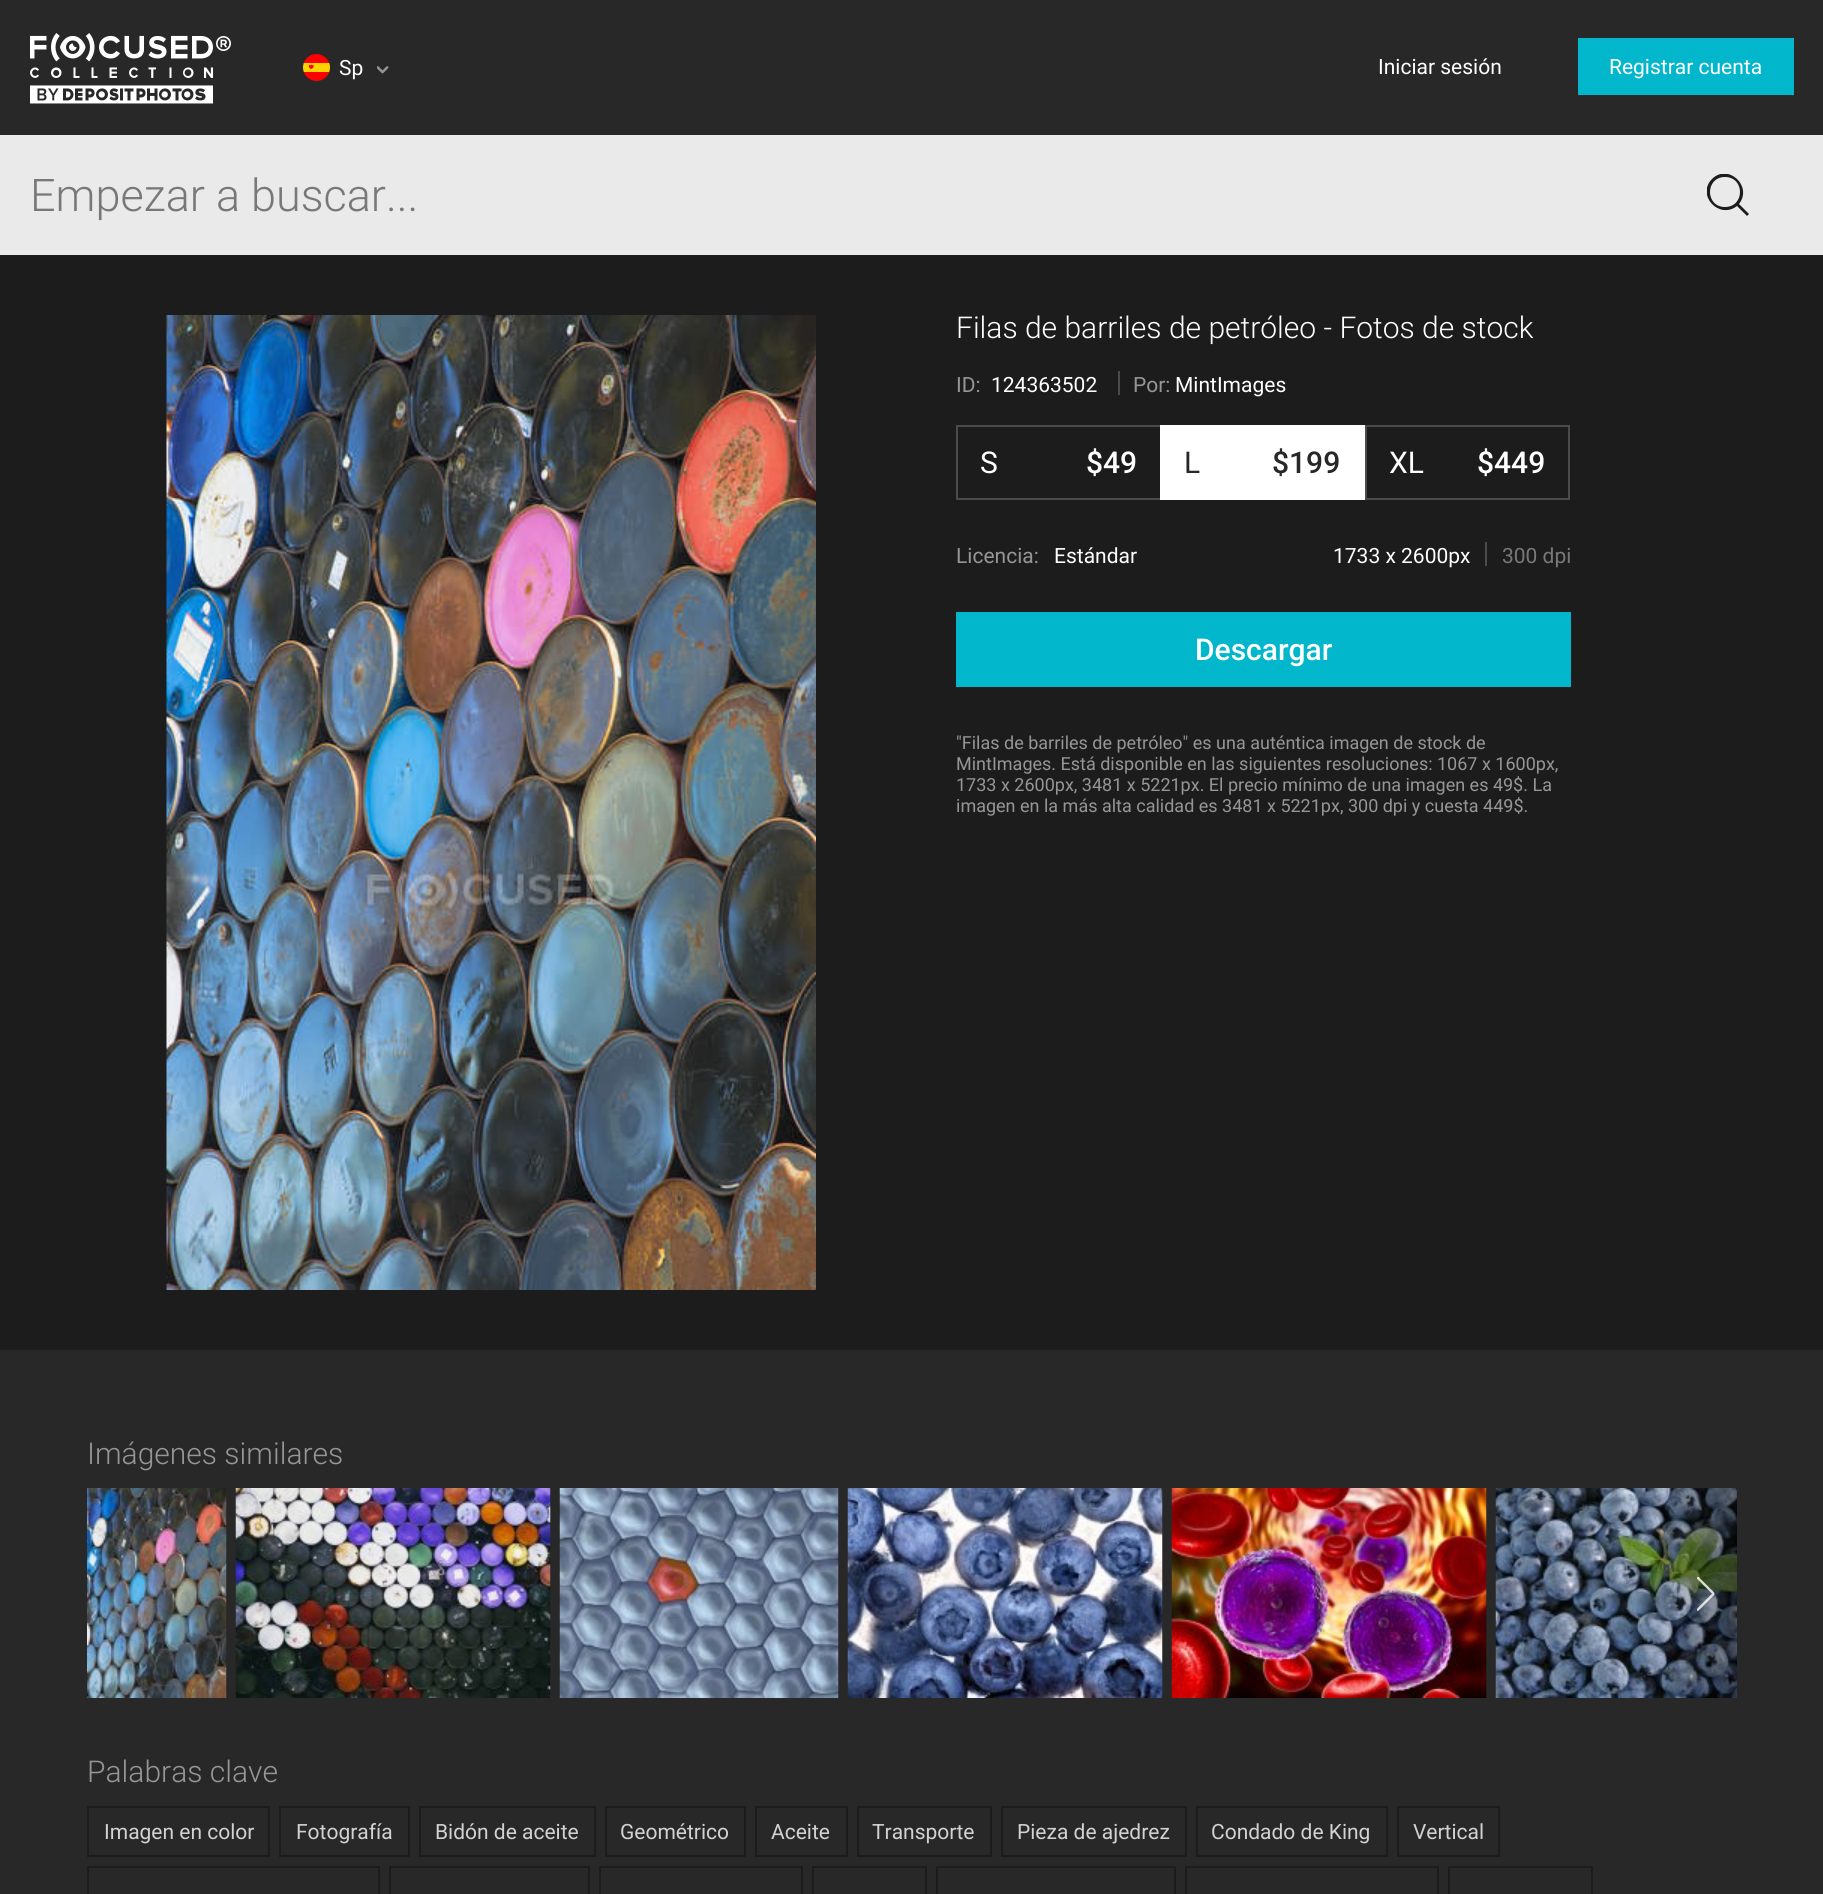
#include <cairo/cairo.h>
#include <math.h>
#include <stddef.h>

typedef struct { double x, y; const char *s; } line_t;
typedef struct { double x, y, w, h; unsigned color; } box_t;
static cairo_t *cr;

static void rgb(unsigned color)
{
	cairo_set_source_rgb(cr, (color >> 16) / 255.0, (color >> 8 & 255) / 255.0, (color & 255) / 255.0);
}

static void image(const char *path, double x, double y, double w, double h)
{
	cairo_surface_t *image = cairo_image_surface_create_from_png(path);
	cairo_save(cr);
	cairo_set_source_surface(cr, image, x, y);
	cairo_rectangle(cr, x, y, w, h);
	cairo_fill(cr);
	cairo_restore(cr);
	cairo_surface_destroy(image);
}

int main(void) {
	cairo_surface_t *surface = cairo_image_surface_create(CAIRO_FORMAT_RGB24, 1823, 1894);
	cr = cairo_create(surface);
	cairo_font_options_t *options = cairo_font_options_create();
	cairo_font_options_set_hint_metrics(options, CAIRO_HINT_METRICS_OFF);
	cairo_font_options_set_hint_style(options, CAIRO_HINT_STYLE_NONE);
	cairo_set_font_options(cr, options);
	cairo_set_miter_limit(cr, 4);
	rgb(0x282828);
	cairo_paint(cr);
	image("img/1.png", 30, 33, 201, 71);
	image("img/2.png", 303, 54, 27, 27);
	image("img/3.png", 377, 66, 12, 8);
	rgb(0x02b6cb);
	cairo_rectangle(cr, 1578, 38, 216, 57);
	cairo_fill(cr);
	rgb(0xeaeaea);
	cairo_rectangle(cr, 0, 135, 1823, 120);
	cairo_fill(cr);
	cairo_save(cr);
	cairo_rectangle(cr, 1707, 174, 42, 42);
	cairo_clip(cr);
	rgb(0x1c1c1c);
	cairo_set_fill_rule(cr, CAIRO_FILL_RULE_EVEN_ODD);
	cairo_new_path(cr);
	cairo_move_to(cr, 1749, 214);
	cairo_line_to(cr, 1747, 216);
	cairo_line_to(cr, 1737, 206);
	cairo_curve_to(cr, 1719, 220, 1696, 195, 1712, 179);
	cairo_curve_to(cr, 1728, 163, 1753, 186, 1739, 204);
	cairo_close_path(cr);
	cairo_move_to(cr, 1725, 177);
	cairo_curve_to(cr, 1705, 177, 1705, 207, 1725, 207);
	cairo_curve_to(cr, 1745, 207, 1745, 177, 1725, 177);
	cairo_close_path(cr);
	cairo_fill(cr);
	cairo_restore(cr);
	rgb(0x1c1c1c);
	cairo_rectangle(cr, 0, 255, 1823, 1095);
	cairo_fill(cr);
	image("img/4.png", 166, 315, 650, 975);
	{
		static const box_t items[] = {
			{1118, 371, 2, 24, 0x4b4b4b},
			{956, 425, 205, 2, 0x4b4b4b},
			{956, 498, 205, 2, 0x4b4b4b},
			{1160, 425, 205, 75, 0xffffff},
			{1485, 542, 2, 24, 0x4b4b4b},
			{956, 425, 2, 75, 0x4b4b4b},
			{1365, 425, 204, 2, 0x4b4b4b},
			{1568, 425, 2, 75, 0x4b4b4b},
			{1365, 498, 204, 2, 0x4b4b4b},
			{1365, 425, 2, 75, 0x4b4b4b},
			{956, 612, 615, 75, 0x02b6cb},
		};
		for (size_t i = 0; i < sizeof items / sizeof *items; i++) {
			rgb(items[i].color);
			cairo_rectangle(cr, items[i].x, items[i].y, items[i].w, items[i].h);
			cairo_fill(cr);
		}
	}
	image("img/5.png", 87, 1488, 140, 210);
	image("img/6.png", 235, 1488, 316, 210);
	image("img/7.png", 559, 1488, 280, 210);
	image("img/8.png", 847, 1488, 316, 210);
	image("img/9.png", 1171, 1488, 316, 210);
	image("img/10.png", 1495, 1488, 242, 210);
	image("img/11.png", 1697, 1577, 18, 34);
	cairo_rectangle(cr, 88, 1807, 181, 49);
	rgb(0x1c1c1c);
	cairo_stroke(cr);
	cairo_rectangle(cr, 280, 1807, 129, 49);
	cairo_stroke(cr);
	cairo_rectangle(cr, 420, 1807, 175, 49);
	cairo_stroke(cr);
	cairo_rectangle(cr, 606, 1807, 139, 49);
	cairo_stroke(cr);
	cairo_rectangle(cr, 756, 1807, 91, 49);
	cairo_stroke(cr);
	cairo_rectangle(cr, 858, 1807, 133, 49);
	cairo_stroke(cr);
	cairo_rectangle(cr, 1002, 1807, 184, 49);
	cairo_stroke(cr);
	cairo_rectangle(cr, 1197, 1807, 190, 49);
	cairo_stroke(cr);
	cairo_rectangle(cr, 1398, 1807, 101, 49);
	cairo_stroke(cr);
	cairo_rectangle(cr, 88, 1867, 291, 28);
	cairo_stroke(cr);
	cairo_rectangle(cr, 390, 1867, 199, 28);
	cairo_stroke(cr);
	cairo_rectangle(cr, 600, 1867, 202, 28);
	cairo_stroke(cr);
	cairo_rectangle(cr, 813, 1867, 113, 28);
	cairo_stroke(cr);
	cairo_rectangle(cr, 937, 1867, 238, 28);
	cairo_stroke(cr);
	cairo_rectangle(cr, 1186, 1867, 252, 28);
	cairo_stroke(cr);
	cairo_rectangle(cr, 1449, 1867, 143, 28);
	cairo_stroke(cr);
	cairo_select_font_face(cr, "Roboto", CAIRO_FONT_SLANT_NORMAL, CAIRO_FONT_WEIGHT_NORMAL);
	cairo_set_font_size(cr, 21);
	rgb(0xffffff);
	{
		static const line_t items[] = {
			{339, 75, "Sp"},
			{1378, 74, "Iniciar sesión"},
			{1609, 74, "Registrar cuenta"},
		};
		for (size_t i = 0; i < sizeof items / sizeof *items; i++) {
			cairo_move_to(cr, items[i].x, items[i].y);
			cairo_show_text(cr, items[i].s);
		}
	}
	cairo_select_font_face(cr, "Roboto Light", CAIRO_FONT_SLANT_NORMAL, CAIRO_FONT_WEIGHT_NORMAL);
	cairo_set_font_size(cr, 45);
	rgb(0x787878);
	cairo_move_to(cr, 30, 211);
	cairo_show_text(cr, "Empezar a buscar...");
	cairo_set_font_size(cr, 30);
	rgb(0xffffff);
	cairo_move_to(cr, 956, 338);
	cairo_show_text(cr, "Filas de barriles de petróleo - Fotos de stock");
	cairo_select_font_face(cr, "Roboto", CAIRO_FONT_SLANT_NORMAL, CAIRO_FONT_WEIGHT_NORMAL);
	cairo_set_font_size(cr, 21);
	rgb(0x969696);
	cairo_move_to(cr, 956, 392);
	cairo_show_text(cr, "ID:");
	rgb(0xffffff);
	cairo_move_to(cr, 991, 392);
	cairo_show_text(cr, "124363502");
	rgb(0x969696);
	cairo_move_to(cr, 1133, 392);
	cairo_show_text(cr, "Por:");
	rgb(0xffffff);
	cairo_move_to(cr, 1175, 392);
	cairo_show_text(cr, "MintImages");
	cairo_set_font_size(cr, 30);
	rgb(0x282828);
	cairo_move_to(cr, 1184, 473);
	cairo_show_text(cr, "L");
	cairo_select_font_face(cr, "Roboto Medium", CAIRO_FONT_SLANT_NORMAL, CAIRO_FONT_WEIGHT_NORMAL);
	cairo_move_to(cr, 1272, 473);
	cairo_show_text(cr, "$199");
	cairo_select_font_face(cr, "Roboto", CAIRO_FONT_SLANT_NORMAL, CAIRO_FONT_WEIGHT_NORMAL);
	cairo_set_font_size(cr, 21);
	rgb(0x969696);
	cairo_move_to(cr, 956, 563);
	cairo_show_text(cr, "Licencia:");
	rgb(0xffffff);
	cairo_move_to(cr, 1054, 563);
	cairo_show_text(cr, "Estándar");
	cairo_move_to(cr, 1333, 563);
	cairo_show_text(cr, "1733 x 2600px");
	rgb(0x787878);
	cairo_move_to(cr, 1502, 563);
	cairo_show_text(cr, "300 dpi");
	cairo_set_font_size(cr, 30);
	rgb(0xffffff);
	cairo_move_to(cr, 980, 473);
	cairo_show_text(cr, "S");
	cairo_select_font_face(cr, "Roboto Medium", CAIRO_FONT_SLANT_NORMAL, CAIRO_FONT_WEIGHT_NORMAL);
	cairo_move_to(cr, 1086, 473);
	cairo_show_text(cr, "$49");
	cairo_select_font_face(cr, "Roboto", CAIRO_FONT_SLANT_NORMAL, CAIRO_FONT_WEIGHT_NORMAL);
	cairo_move_to(cr, 1389, 473);
	cairo_show_text(cr, "XL");
	cairo_select_font_face(cr, "Roboto Medium", CAIRO_FONT_SLANT_NORMAL, CAIRO_FONT_WEIGHT_NORMAL);
	cairo_move_to(cr, 1477, 473);
	cairo_show_text(cr, "$449");
	cairo_move_to(cr, 1195, 660);
	cairo_show_text(cr, "Descargar");
	cairo_select_font_face(cr, "Roboto", CAIRO_FONT_SLANT_NORMAL, CAIRO_FONT_WEIGHT_NORMAL);
	cairo_set_font_size(cr, 18);
	rgb(0x969696);
	{
		static const line_t items[] = {
			{956, 749, "\"Filas de barriles de petróleo\" es una auténtica imagen de stock de"},
			{956, 770, "MintImages. Está disponible en las siguientes resoluciones: 1067 x 1600px,"},
			{956, 791, "1733 x 2600px, 3481 x 5221px. El precio mínimo de una imagen es 49$. La"},
			{956, 812, "imagen en la más alta calidad es 3481 x 5221px, 300 dpi y cuesta 449$."},
		};
		for (size_t i = 0; i < sizeof items / sizeof *items; i++) {
			cairo_move_to(cr, items[i].x, items[i].y);
			cairo_show_text(cr, items[i].s);
		}
	}
	cairo_select_font_face(cr, "Roboto Light", CAIRO_FONT_SLANT_NORMAL, CAIRO_FONT_WEIGHT_NORMAL);
	cairo_set_font_size(cr, 30);
	cairo_move_to(cr, 87, 1464);
	cairo_show_text(cr, "Imágenes similares");
	cairo_move_to(cr, 87, 1782);
	cairo_show_text(cr, "Palabras clave");
	cairo_select_font_face(cr, "Roboto", CAIRO_FONT_SLANT_NORMAL, CAIRO_FONT_WEIGHT_NORMAL);
	cairo_set_font_size(cr, 21);
	rgb(0xd2d2d2);
	{
		static const line_t items[] = {
			{104, 1839, "Imagen en color"},
			{296, 1839, "Fotografía"},
			{435, 1839, "Bidón de aceite"},
			{620, 1839, "Geométrico"},
			{771, 1839, "Aceite"},
			{872, 1839, "Transporte"},
			{1017, 1839, "Pieza de ajedrez"},
			{1211, 1839, "Condado de King"},
			{1413, 1839, "Vertical"},
		};
		for (size_t i = 0; i < sizeof items / sizeof *items; i++) {
			cairo_move_to(cr, items[i].x, items[i].y);
			cairo_show_text(cr, items[i].s);
		}
	}
	cairo_surface_write_to_png(surface, "page.png");
	cairo_font_options_destroy(options);
	cairo_destroy(cr);
	cairo_surface_destroy(surface);
	return 0;
}
